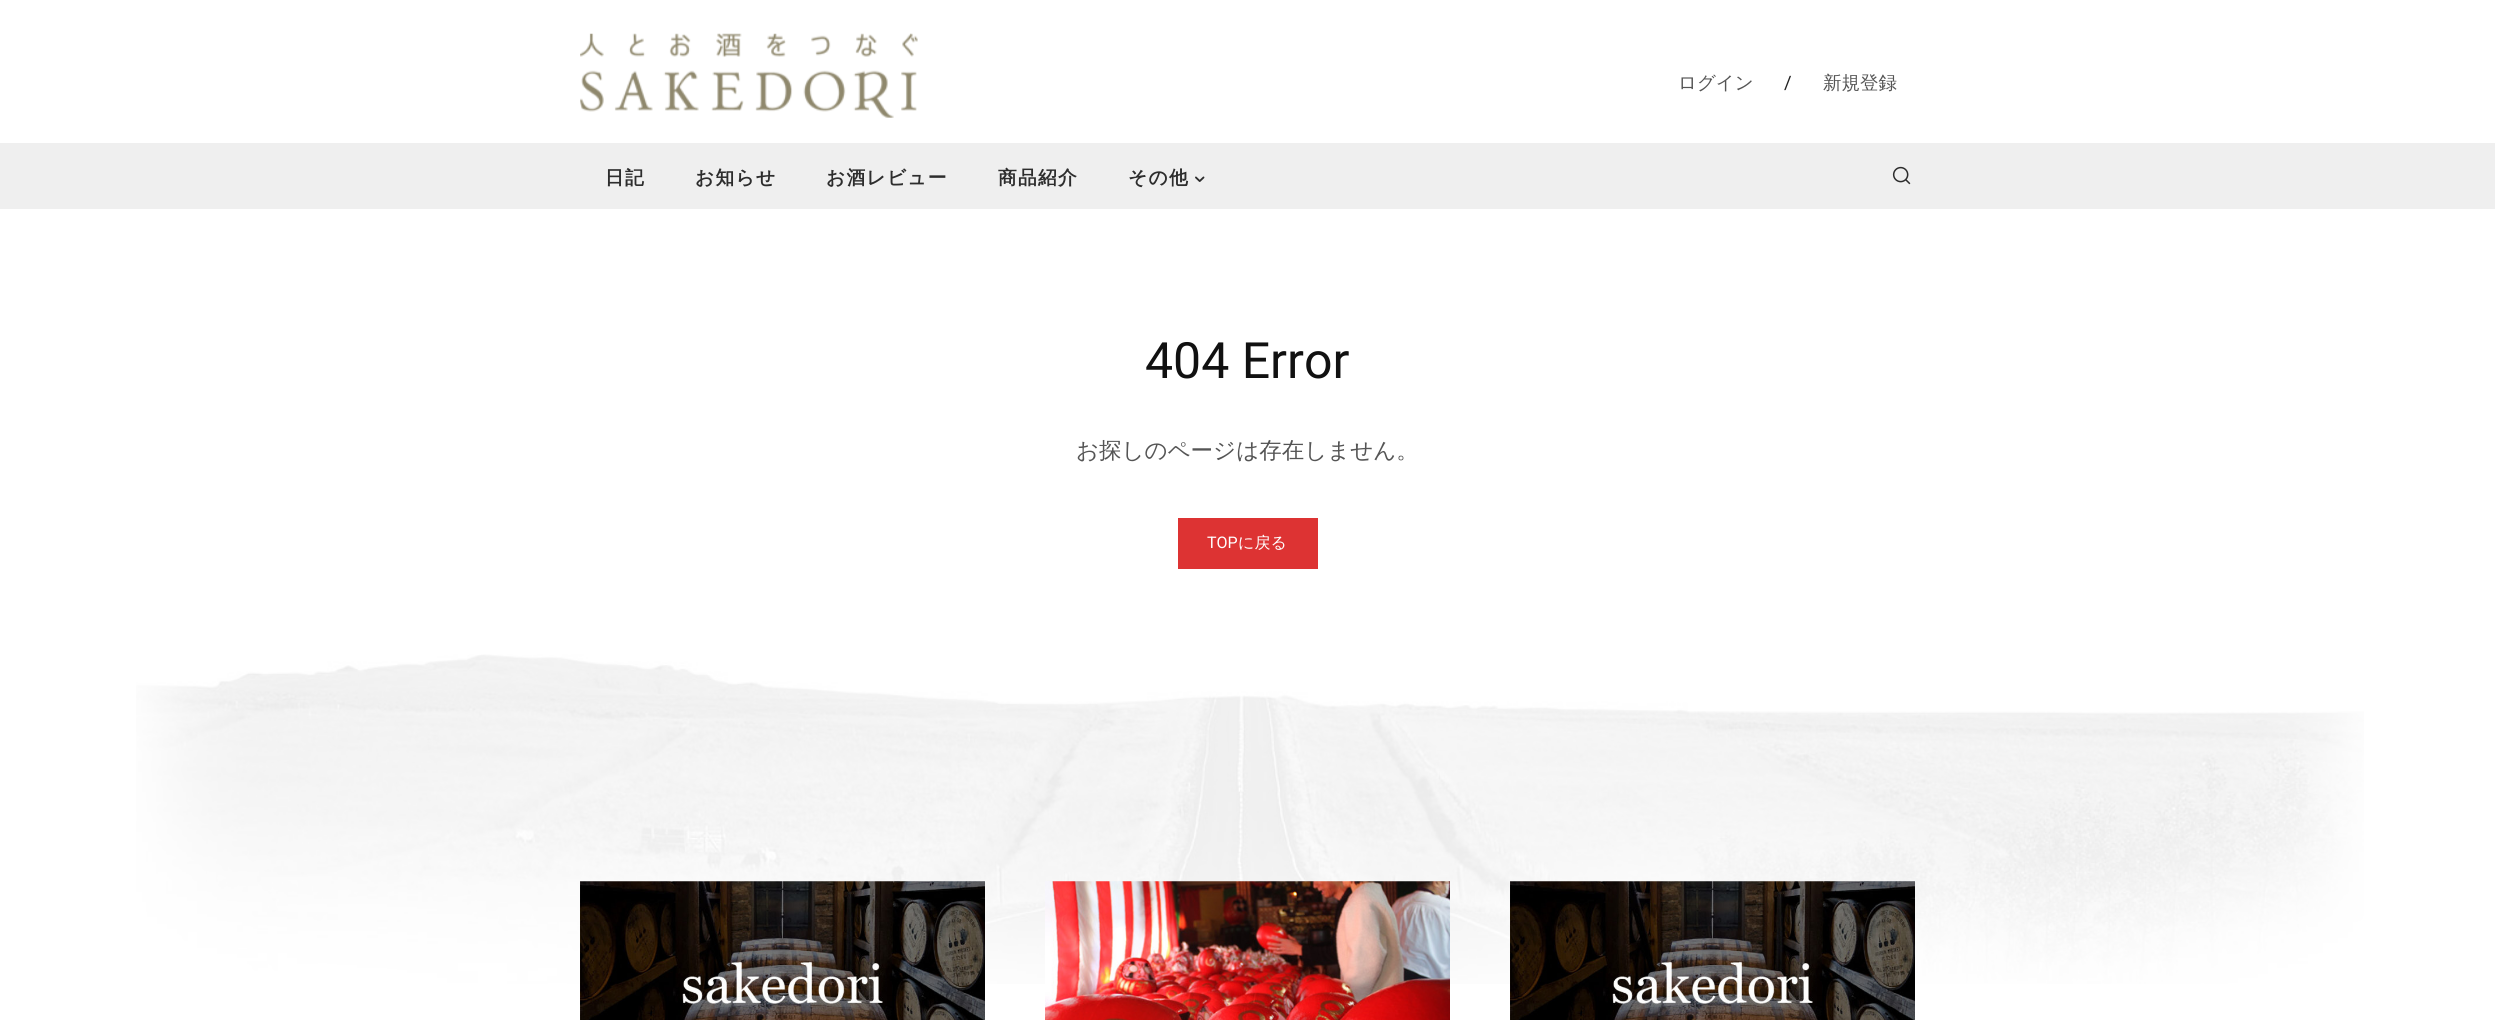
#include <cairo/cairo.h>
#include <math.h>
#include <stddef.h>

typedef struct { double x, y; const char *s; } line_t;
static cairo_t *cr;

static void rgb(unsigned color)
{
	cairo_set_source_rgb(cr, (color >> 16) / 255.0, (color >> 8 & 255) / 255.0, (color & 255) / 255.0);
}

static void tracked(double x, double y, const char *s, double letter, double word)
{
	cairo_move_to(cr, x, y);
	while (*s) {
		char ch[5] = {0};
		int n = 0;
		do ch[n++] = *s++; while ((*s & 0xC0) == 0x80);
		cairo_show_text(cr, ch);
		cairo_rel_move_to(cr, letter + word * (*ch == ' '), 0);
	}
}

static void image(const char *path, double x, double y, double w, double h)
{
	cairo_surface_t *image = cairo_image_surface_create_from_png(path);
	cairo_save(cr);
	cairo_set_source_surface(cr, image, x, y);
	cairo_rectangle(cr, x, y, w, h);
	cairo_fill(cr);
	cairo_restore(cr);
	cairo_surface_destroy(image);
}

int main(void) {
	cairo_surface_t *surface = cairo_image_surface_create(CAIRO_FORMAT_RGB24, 2495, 1020);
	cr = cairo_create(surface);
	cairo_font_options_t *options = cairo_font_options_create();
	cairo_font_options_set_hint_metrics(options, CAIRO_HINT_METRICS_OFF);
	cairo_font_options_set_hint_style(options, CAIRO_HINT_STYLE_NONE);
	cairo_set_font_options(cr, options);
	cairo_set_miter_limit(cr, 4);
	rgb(0xffffff);
	cairo_paint(cr);
	image("img/1.png", 580, 33, 338, 85);
	rgb(0xefefef);
	cairo_rectangle(cr, 0, 143, 2495, 66);
	cairo_fill(cr);
	image("img/2.png", 1195, 176, 10, 6);
	image("img/3.png", 1892, 166, 19, 19);
	rgb(0xdd3333);
	cairo_rectangle(cr, 1178, 518, 140, 51);
	cairo_fill(cr);
	image("img/4.png", 136, 654, 2228, 330);
	image("img/5.png", 580, 881, 405, 139);
	image("img/6.png", 1045, 881, 405, 139);
	image("img/7.png", 1510, 881, 405, 139);
	cairo_select_font_face(cr, "WenQuanYi Zen Hei Medium", CAIRO_FONT_SLANT_NORMAL, CAIRO_FONT_WEIGHT_NORMAL);
	cairo_set_font_size(cr, 18.5);
	rgb(0x555555);
	cairo_move_to(cr, 1678, 89);
	cairo_show_text(cr, "ログイン");
	cairo_select_font_face(cr, "Roboto", CAIRO_FONT_SLANT_NORMAL, CAIRO_FONT_WEIGHT_NORMAL);
	rgb(0x222222);
	cairo_move_to(cr, 1784, 89);
	cairo_show_text(cr, "/");
	cairo_select_font_face(cr, "WenQuanYi Zen Hei Medium", CAIRO_FONT_SLANT_NORMAL, CAIRO_FONT_WEIGHT_NORMAL);
	rgb(0x555555);
	cairo_move_to(cr, 1823, 89);
	cairo_show_text(cr, "新規登録");
	cairo_select_font_face(cr, "WenQuanYi Zen Hei", CAIRO_FONT_SLANT_NORMAL, CAIRO_FONT_WEIGHT_BOLD);
	cairo_set_font_size(cr, 18.75);
	rgb(0x2d2d2d);
	{
		static const line_t items[] = {
			{605, 184, "日記"},
			{695, 184, "お知らせ"},
			{826, 184, "お酒レビュー"},
			{998, 184, "商品紹介"},
			{1128, 184, "その他"},
		};
		for (size_t i = 0; i < sizeof items / sizeof *items; i++) {
			tracked(items[i].x, items[i].y, items[i].s, 1.25, 0);
		}
	}
	cairo_select_font_face(cr, "Roboto", CAIRO_FONT_SLANT_NORMAL, CAIRO_FONT_WEIGHT_NORMAL);
	cairo_set_font_size(cr, 50);
	rgb(0x111111);
	cairo_move_to(cr, 1145, 378);
	cairo_show_text(cr, "404 Error");
	cairo_select_font_face(cr, "WenQuanYi Zen Hei Medium", CAIRO_FONT_SLANT_NORMAL, CAIRO_FONT_WEIGHT_NORMAL);
	cairo_set_font_size(cr, 22.5);
	rgb(0x555555);
	cairo_move_to(cr, 1076, 458);
	cairo_show_text(cr, "お探しのページは存在しません。");
	cairo_select_font_face(cr, "Roboto", CAIRO_FONT_SLANT_NORMAL, CAIRO_FONT_WEIGHT_NORMAL);
	cairo_set_font_size(cr, 16);
	rgb(0xffffff);
	cairo_move_to(cr, 1207, 548);
	cairo_show_text(cr, "TOP");
	cairo_select_font_face(cr, "WenQuanYi Zen Hei Medium", CAIRO_FONT_SLANT_NORMAL, CAIRO_FONT_WEIGHT_NORMAL);
	cairo_move_to(cr, 1238, 548);
	cairo_show_text(cr, "に戻る");
	cairo_surface_write_to_png(surface, "page.png");
	cairo_font_options_destroy(options);
	cairo_destroy(cr);
	cairo_surface_destroy(surface);
	return 0;
}
